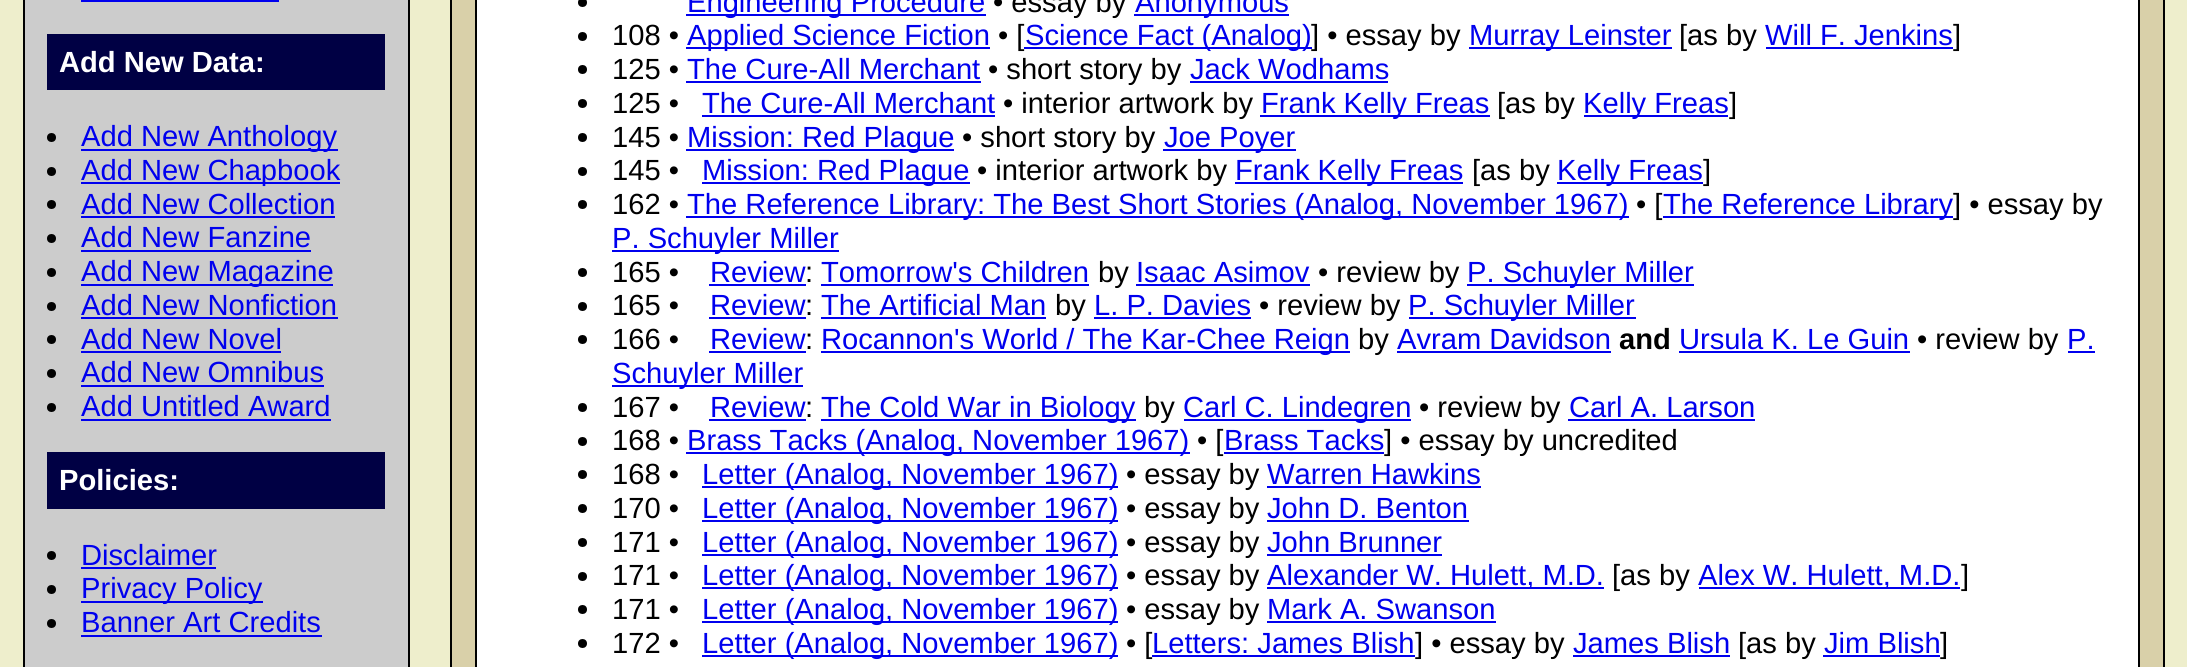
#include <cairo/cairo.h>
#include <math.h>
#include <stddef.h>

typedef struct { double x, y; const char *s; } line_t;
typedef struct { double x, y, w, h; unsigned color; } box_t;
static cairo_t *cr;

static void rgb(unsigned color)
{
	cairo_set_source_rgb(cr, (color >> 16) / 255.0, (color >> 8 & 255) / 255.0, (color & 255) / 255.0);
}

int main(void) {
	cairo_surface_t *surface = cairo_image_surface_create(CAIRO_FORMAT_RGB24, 2187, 667);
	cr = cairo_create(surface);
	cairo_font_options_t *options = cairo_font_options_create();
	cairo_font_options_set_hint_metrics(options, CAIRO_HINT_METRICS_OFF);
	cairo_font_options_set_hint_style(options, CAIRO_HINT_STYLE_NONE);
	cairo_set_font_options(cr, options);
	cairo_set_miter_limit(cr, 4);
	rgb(0xeeeecc);
	cairo_paint(cr);
	rgb(0xcccccc);
	cairo_rectangle(cr, 24, -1, 385, 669);
	cairo_fill_preserve(cr);
	rgb(0x000000);
	cairo_stroke(cr);
	rgb(0x0000ee);
	cairo_rectangle(cr, 81, 0, 198, 2);
	cairo_fill(cr);
	rgb(0x000044);
	cairo_rectangle(cr, 47, 34, 338, 56);
	cairo_fill(cr);
	rgb(0x000000);
	cairo_arc(cr, 51.5, 137.5, 4.5, 0, 2 * M_PI);
	cairo_fill(cr);
	rgb(0x0000ee);
	cairo_rectangle(cr, 81, 149, 257, 2);
	cairo_fill(cr);
	rgb(0x000000);
	cairo_arc(cr, 51.5, 171.5, 4.5, 0, 2 * M_PI);
	cairo_fill(cr);
	rgb(0x0000ee);
	cairo_rectangle(cr, 81, 182, 259, 2);
	cairo_fill(cr);
	rgb(0x000000);
	cairo_arc(cr, 51.5, 204.5, 4.5, 0, 2 * M_PI);
	cairo_fill(cr);
	rgb(0x0000ee);
	cairo_rectangle(cr, 81, 216, 254, 2);
	cairo_fill(cr);
	rgb(0x000000);
	cairo_arc(cr, 51.5, 238.5, 4.5, 0, 2 * M_PI);
	cairo_fill(cr);
	rgb(0x0000ee);
	cairo_rectangle(cr, 81, 250, 230, 2);
	cairo_fill(cr);
	rgb(0x000000);
	cairo_arc(cr, 51.5, 272.5, 4.5, 0, 2 * M_PI);
	cairo_fill(cr);
	rgb(0x0000ee);
	cairo_rectangle(cr, 81, 284, 252, 2);
	cairo_fill(cr);
	rgb(0x000000);
	cairo_arc(cr, 51.5, 306.5, 4.5, 0, 2 * M_PI);
	cairo_fill(cr);
	rgb(0x0000ee);
	cairo_rectangle(cr, 81, 317, 257, 2);
	cairo_fill(cr);
	rgb(0x000000);
	cairo_arc(cr, 51.5, 339.5, 4.5, 0, 2 * M_PI);
	cairo_fill(cr);
	rgb(0x0000ee);
	cairo_rectangle(cr, 81, 351, 200, 2);
	cairo_fill(cr);
	rgb(0x000000);
	cairo_arc(cr, 51.5, 373.5, 4.5, 0, 2 * M_PI);
	cairo_fill(cr);
	rgb(0x0000ee);
	cairo_rectangle(cr, 81, 385, 243, 2);
	cairo_fill(cr);
	rgb(0x000000);
	cairo_arc(cr, 51.5, 407.5, 4.5, 0, 2 * M_PI);
	cairo_fill(cr);
	rgb(0x0000ee);
	cairo_rectangle(cr, 81, 419, 250, 2);
	cairo_fill(cr);
	rgb(0x000044);
	cairo_rectangle(cr, 47, 452, 338, 57);
	cairo_fill(cr);
	rgb(0x000000);
	cairo_arc(cr, 51.5, 555.5, 4.5, 0, 2 * M_PI);
	cairo_fill(cr);
	rgb(0x0000ee);
	cairo_rectangle(cr, 81, 567, 135, 2);
	cairo_fill(cr);
	rgb(0x000000);
	cairo_arc(cr, 51.5, 589.5, 4.5, 0, 2 * M_PI);
	cairo_fill(cr);
	rgb(0x0000ee);
	cairo_rectangle(cr, 81, 601, 182, 2);
	cairo_fill(cr);
	rgb(0x000000);
	cairo_arc(cr, 51.5, 623.5, 4.5, 0, 2 * M_PI);
	cairo_fill(cr);
	rgb(0x0000ee);
	cairo_rectangle(cr, 81, 635, 241, 2);
	cairo_fill(cr);
	rgb(0xd9d0a9);
	cairo_rectangle(cr, 451, -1, 1713, 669);
	cairo_fill_preserve(cr);
	rgb(0x000000);
	cairo_stroke(cr);
	rgb(0xffffff);
	cairo_rectangle(cr, 476, -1, 1663, 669);
	cairo_fill_preserve(cr);
	rgb(0x000000);
	cairo_stroke(cr);
	cairo_arc(cr, 582.5, 2.5, 4.5, 0, 2 * M_PI);
	cairo_fill(cr);
	rgb(0x0000ee);
	cairo_rectangle(cr, 686, 14, 300, 2);
	cairo_fill(cr);
	cairo_rectangle(cr, 1134, 14, 155, 2);
	cairo_fill(cr);
	rgb(0x000000);
	cairo_arc(cr, 582.5, 36.5, 4.5, 0, 2 * M_PI);
	cairo_fill(cr);
	{
		static const box_t items[] = {
			{686, 47, 304, 2, 0x0000ee},
			{1469, 47, 203, 2, 0x0000ee},
			{1766, 47, 187, 2, 0x0000ee},
		};
		for (size_t i = 0; i < sizeof items / sizeof *items; i++) {
			rgb(items[i].color);
			cairo_rectangle(cr, items[i].x, items[i].y, items[i].w, items[i].h);
			cairo_fill(cr);
		}
	}
	rgb(0x000000);
	cairo_arc(cr, 582.5, 69.5, 4.5, 0, 2 * M_PI);
	cairo_fill(cr);
	rgb(0x0000ee);
	cairo_rectangle(cr, 686, 81, 295, 2);
	cairo_fill(cr);
	cairo_rectangle(cr, 1190, 81, 198, 2);
	cairo_fill(cr);
	rgb(0x000000);
	cairo_arc(cr, 582.5, 103.5, 4.5, 0, 2 * M_PI);
	cairo_fill(cr);
	{
		static const box_t items[] = {
			{702, 115, 293, 2, 0x0000ee},
			{1260, 115, 230, 2, 0x0000ee},
			{1584, 115, 144, 2, 0x0000ee},
		};
		for (size_t i = 0; i < sizeof items / sizeof *items; i++) {
			rgb(items[i].color);
			cairo_rectangle(cr, items[i].x, items[i].y, items[i].w, items[i].h);
			cairo_fill(cr);
		}
	}
	rgb(0x000000);
	cairo_arc(cr, 582.5, 137.5, 4.5, 0, 2 * M_PI);
	cairo_fill(cr);
	rgb(0x0000ee);
	cairo_rectangle(cr, 686, 149, 268, 2);
	cairo_fill(cr);
	cairo_rectangle(cr, 1163, 149, 133, 2);
	cairo_fill(cr);
	rgb(0x000000);
	cairo_arc(cr, 582.5, 171.5, 4.5, 0, 2 * M_PI);
	cairo_fill(cr);
	{
		static const box_t items[] = {
			{702, 182, 268, 2, 0x0000ee},
			{1235, 182, 228, 2, 0x0000ee},
			{1557, 182, 146, 2, 0x0000ee},
		};
		for (size_t i = 0; i < sizeof items / sizeof *items; i++) {
			rgb(items[i].color);
			cairo_rectangle(cr, items[i].x, items[i].y, items[i].w, items[i].h);
			cairo_fill(cr);
		}
	}
	rgb(0x000000);
	cairo_arc(cr, 582.5, 204.5, 4.5, 0, 2 * M_PI);
	cairo_fill(cr);
	{
		static const box_t items[] = {
			{686, 216, 943, 2, 0x0000ee},
			{1663, 216, 290, 2, 0x0000ee},
			{612, 250, 227, 2, 0x0000ee},
		};
		for (size_t i = 0; i < sizeof items / sizeof *items; i++) {
			rgb(items[i].color);
			cairo_rectangle(cr, items[i].x, items[i].y, items[i].w, items[i].h);
			cairo_fill(cr);
		}
	}
	rgb(0x000000);
	cairo_arc(cr, 582.5, 272.5, 4.5, 0, 2 * M_PI);
	cairo_fill(cr);
	{
		static const box_t items[] = {
			{709, 284, 97, 2, 0x0000ee},
			{821, 284, 268, 2, 0x0000ee},
			{1136, 284, 174, 2, 0x0000ee},
			{1467, 284, 227, 2, 0x0000ee},
		};
		for (size_t i = 0; i < sizeof items / sizeof *items; i++) {
			rgb(items[i].color);
			cairo_rectangle(cr, items[i].x, items[i].y, items[i].w, items[i].h);
			cairo_fill(cr);
		}
	}
	rgb(0x000000);
	cairo_arc(cr, 582.5, 306.5, 4.5, 0, 2 * M_PI);
	cairo_fill(cr);
	{
		static const box_t items[] = {
			{709, 317, 97, 2, 0x0000ee},
			{821, 317, 225, 2, 0x0000ee},
			{1094, 317, 157, 2, 0x0000ee},
			{1409, 317, 227, 2, 0x0000ee},
		};
		for (size_t i = 0; i < sizeof items / sizeof *items; i++) {
			rgb(items[i].color);
			cairo_rectangle(cr, items[i].x, items[i].y, items[i].w, items[i].h);
			cairo_fill(cr);
		}
	}
	rgb(0x000000);
	cairo_arc(cr, 582.5, 339.5, 4.5, 0, 2 * M_PI);
	cairo_fill(cr);
	{
		static const box_t items[] = {
			{709, 351, 97, 2, 0x0000ee},
			{821, 351, 529, 2, 0x0000ee},
			{1397, 351, 214, 2, 0x0000ee},
			{1679, 351, 231, 2, 0x0000ee},
			{2068, 351, 27, 2, 0x0000ee},
			{612, 385, 191, 2, 0x0000ee},
		};
		for (size_t i = 0; i < sizeof items / sizeof *items; i++) {
			rgb(items[i].color);
			cairo_rectangle(cr, items[i].x, items[i].y, items[i].w, items[i].h);
			cairo_fill(cr);
		}
	}
	rgb(0x000000);
	cairo_arc(cr, 582.5, 407.5, 4.5, 0, 2 * M_PI);
	cairo_fill(cr);
	{
		static const box_t items[] = {
			{709, 419, 97, 2, 0x0000ee},
			{821, 419, 315, 2, 0x0000ee},
			{1184, 419, 227, 2, 0x0000ee},
			{1568, 419, 187, 2, 0x0000ee},
		};
		for (size_t i = 0; i < sizeof items / sizeof *items; i++) {
			rgb(items[i].color);
			cairo_rectangle(cr, items[i].x, items[i].y, items[i].w, items[i].h);
			cairo_fill(cr);
		}
	}
	rgb(0x000000);
	cairo_arc(cr, 582.5, 441.5, 4.5, 0, 2 * M_PI);
	cairo_fill(cr);
	rgb(0x0000ee);
	cairo_rectangle(cr, 686, 452, 504, 2);
	cairo_fill(cr);
	cairo_rectangle(cr, 1224, 452, 160, 2);
	cairo_fill(cr);
	rgb(0x000000);
	cairo_arc(cr, 582.5, 474.5, 4.5, 0, 2 * M_PI);
	cairo_fill(cr);
	rgb(0x0000ee);
	cairo_rectangle(cr, 702, 486, 416, 2);
	cairo_fill(cr);
	cairo_rectangle(cr, 1267, 486, 214, 2);
	cairo_fill(cr);
	rgb(0x000000);
	cairo_arc(cr, 582.5, 508.5, 4.5, 0, 2 * M_PI);
	cairo_fill(cr);
	rgb(0x0000ee);
	cairo_rectangle(cr, 702, 520, 416, 2);
	cairo_fill(cr);
	cairo_rectangle(cr, 1267, 520, 202, 2);
	cairo_fill(cr);
	rgb(0x000000);
	cairo_arc(cr, 582.5, 542.5, 4.5, 0, 2 * M_PI);
	cairo_fill(cr);
	rgb(0x0000ee);
	cairo_rectangle(cr, 702, 554, 416, 2);
	cairo_fill(cr);
	cairo_rectangle(cr, 1267, 554, 175, 2);
	cairo_fill(cr);
	rgb(0x000000);
	cairo_arc(cr, 582.5, 576.5, 4.5, 0, 2 * M_PI);
	cairo_fill(cr);
	{
		static const box_t items[] = {
			{702, 587, 416, 2, 0x0000ee},
			{1267, 587, 337, 2, 0x0000ee},
			{1699, 587, 261, 2, 0x0000ee},
		};
		for (size_t i = 0; i < sizeof items / sizeof *items; i++) {
			rgb(items[i].color);
			cairo_rectangle(cr, items[i].x, items[i].y, items[i].w, items[i].h);
			cairo_fill(cr);
		}
	}
	rgb(0x000000);
	cairo_arc(cr, 582.5, 609.5, 4.5, 0, 2 * M_PI);
	cairo_fill(cr);
	rgb(0x0000ee);
	cairo_rectangle(cr, 702, 621, 416, 2);
	cairo_fill(cr);
	cairo_rectangle(cr, 1267, 621, 229, 2);
	cairo_fill(cr);
	rgb(0x000000);
	cairo_arc(cr, 582.5, 643.5, 4.5, 0, 2 * M_PI);
	cairo_fill(cr);
	{
		static const box_t items[] = {
			{702, 655, 416, 2, 0x0000ee},
			{1573, 655, 157, 2, 0x0000ee},
			{1823, 655, 117, 2, 0x0000ee},
		};
		for (size_t i = 0; i < sizeof items / sizeof *items; i++) {
			rgb(items[i].color);
			cairo_rectangle(cr, items[i].x, items[i].y, items[i].w, items[i].h);
			cairo_fill(cr);
		}
	}
	cairo_select_font_face(cr, "Liberation Sans", CAIRO_FONT_SLANT_NORMAL, CAIRO_FONT_WEIGHT_BOLD);
	cairo_set_font_size(cr, 29.15);
	rgb(0xffffff);
	cairo_move_to(cr, 59, 72);
	cairo_show_text(cr, "Add New Data:");
	cairo_select_font_face(cr, "Liberation Sans", CAIRO_FONT_SLANT_NORMAL, CAIRO_FONT_WEIGHT_NORMAL);
	rgb(0x0000ee);
	{
		static const line_t items[] = {
			{81, 146, "Add New Anthology"},
			{81, 180, "Add New Chapbook"},
			{81, 214, "Add New Collection"},
			{81, 247, "Add New Fanzine"},
			{81, 281, "Add New Magazine"},
			{81, 315, "Add New Nonfiction"},
			{81, 349, "Add New Novel"},
			{81, 382, "Add New Omnibus"},
			{81, 416, "Add Untitled Award"},
		};
		for (size_t i = 0; i < sizeof items / sizeof *items; i++) {
			cairo_move_to(cr, items[i].x, items[i].y);
			cairo_show_text(cr, items[i].s);
		}
	}
	cairo_select_font_face(cr, "Liberation Sans", CAIRO_FONT_SLANT_NORMAL, CAIRO_FONT_WEIGHT_BOLD);
	rgb(0xffffff);
	cairo_move_to(cr, 59, 490);
	cairo_show_text(cr, "Policies:");
	cairo_select_font_face(cr, "Liberation Sans", CAIRO_FONT_SLANT_NORMAL, CAIRO_FONT_WEIGHT_NORMAL);
	rgb(0x0000ee);
	{
		static const line_t items[] = {
			{81, 565, "Disclaimer"},
			{81, 598, "Privacy Policy"},
			{81, 632, "Banner Art Credits"},
			{687, 12, "Engineering Procedure"},
		};
		for (size_t i = 0; i < sizeof items / sizeof *items; i++) {
			cairo_move_to(cr, items[i].x, items[i].y);
			cairo_show_text(cr, items[i].s);
		}
	}
	rgb(0x000000);
	cairo_move_to(cr, 993, 12);
	cairo_show_text(cr, "• essay by");
	rgb(0x0000ee);
	cairo_move_to(cr, 1135, 12);
	cairo_show_text(cr, "Anonymous");
	rgb(0x000000);
	cairo_move_to(cr, 612, 45);
	cairo_show_text(cr, "108 •");
	rgb(0x0000ee);
	cairo_move_to(cr, 687, 45);
	cairo_show_text(cr, "Applied Science Fiction");
	rgb(0x000000);
	cairo_move_to(cr, 998, 45);
	cairo_show_text(cr, "• [");
	rgb(0x0000ee);
	cairo_rectangle(cr, 1024, 47, 288, 2);
	cairo_fill(cr);
	cairo_move_to(cr, 1025, 45);
	cairo_show_text(cr, "Science Fact (Analog)");
	rgb(0x000000);
	cairo_move_to(cr, 1311, 45);
	cairo_show_text(cr, "] • essay by");
	rgb(0x0000ee);
	cairo_move_to(cr, 1469, 45);
	cairo_show_text(cr, "Murray Leinster");
	rgb(0x000000);
	cairo_move_to(cr, 1679, 45);
	cairo_show_text(cr, "[as by");
	rgb(0x0000ee);
	cairo_move_to(cr, 1765, 45);
	cairo_show_text(cr, "Will F. Jenkins");
	rgb(0x000000);
	cairo_move_to(cr, 1953, 45);
	cairo_show_text(cr, "]");
	cairo_move_to(cr, 612, 79);
	cairo_show_text(cr, "125 •");
	rgb(0x0000ee);
	cairo_move_to(cr, 687, 79);
	cairo_show_text(cr, "The Cure-All Merchant");
	rgb(0x000000);
	cairo_move_to(cr, 988, 79);
	cairo_show_text(cr, "• short story by");
	rgb(0x0000ee);
	cairo_move_to(cr, 1190, 79);
	cairo_show_text(cr, "Jack Wodhams");
	rgb(0x000000);
	cairo_move_to(cr, 612, 113);
	cairo_show_text(cr, "125 •");
	rgb(0x0000ee);
	cairo_move_to(cr, 702, 113);
	cairo_show_text(cr, "The Cure-All Merchant");
	rgb(0x000000);
	cairo_move_to(cr, 1003, 113);
	cairo_show_text(cr, "• interior artwork by");
	rgb(0x0000ee);
	cairo_move_to(cr, 1261, 113);
	cairo_show_text(cr, "Frank Kelly Freas");
	rgb(0x000000);
	cairo_move_to(cr, 1497, 113);
	cairo_show_text(cr, "[as by");
	rgb(0x0000ee);
	cairo_move_to(cr, 1583, 113);
	cairo_show_text(cr, "Kelly Freas");
	rgb(0x000000);
	cairo_move_to(cr, 1729, 113);
	cairo_show_text(cr, "]");
	cairo_move_to(cr, 612, 147);
	cairo_show_text(cr, "145 •");
	rgb(0x0000ee);
	cairo_move_to(cr, 687, 147);
	cairo_show_text(cr, "Mission: Red Plague");
	rgb(0x000000);
	cairo_move_to(cr, 962, 147);
	cairo_show_text(cr, "• short story by");
	rgb(0x0000ee);
	cairo_move_to(cr, 1164, 147);
	cairo_show_text(cr, "Joe Poyer");
	rgb(0x000000);
	cairo_move_to(cr, 612, 180);
	cairo_show_text(cr, "145 •");
	rgb(0x0000ee);
	cairo_move_to(cr, 702, 180);
	cairo_show_text(cr, "Mission: Red Plague");
	rgb(0x000000);
	cairo_move_to(cr, 977, 180);
	cairo_show_text(cr, "• interior artwork by");
	rgb(0x0000ee);
	cairo_move_to(cr, 1235, 180);
	cairo_show_text(cr, "Frank Kelly Freas");
	rgb(0x000000);
	cairo_move_to(cr, 1472, 180);
	cairo_show_text(cr, "[as by");
	rgb(0x0000ee);
	cairo_move_to(cr, 1557, 180);
	cairo_show_text(cr, "Kelly Freas");
	rgb(0x000000);
	cairo_move_to(cr, 1703, 180);
	cairo_show_text(cr, "]");
	cairo_move_to(cr, 612, 214);
	cairo_show_text(cr, "162 •");
	rgb(0x0000ee);
	cairo_move_to(cr, 687, 214);
	cairo_show_text(cr, "The Reference Library: The Best Short Stories (Analog, November 1967)");
	rgb(0x000000);
	cairo_move_to(cr, 1636, 214);
	cairo_show_text(cr, "• [");
	rgb(0x0000ee);
	cairo_move_to(cr, 1663, 214);
	cairo_show_text(cr, "The Reference Library");
	rgb(0x000000);
	cairo_move_to(cr, 1953, 214);
	cairo_show_text(cr, "] • essay by");
	rgb(0x0000ee);
	cairo_move_to(cr, 612, 248);
	cairo_show_text(cr, "P. Schuyler Miller");
	rgb(0x000000);
	cairo_move_to(cr, 612, 282);
	cairo_show_text(cr, "165 •");
	rgb(0x0000ee);
	cairo_move_to(cr, 710, 282);
	cairo_show_text(cr, "Review");
	rgb(0x000000);
	cairo_move_to(cr, 805, 282);
	cairo_show_text(cr, ":");
	rgb(0x0000ee);
	cairo_move_to(cr, 821, 282);
	cairo_show_text(cr, "Tomorrow's Children");
	rgb(0x000000);
	cairo_move_to(cr, 1098, 282);
	cairo_show_text(cr, "by");
	rgb(0x0000ee);
	cairo_move_to(cr, 1136, 282);
	cairo_show_text(cr, "Isaac Asimov");
	rgb(0x000000);
	cairo_move_to(cr, 1318, 282);
	cairo_show_text(cr, "• review by");
	rgb(0x0000ee);
	cairo_move_to(cr, 1467, 282);
	cairo_show_text(cr, "P. Schuyler Miller");
	rgb(0x000000);
	cairo_move_to(cr, 612, 315);
	cairo_show_text(cr, "165 •");
	rgb(0x0000ee);
	cairo_move_to(cr, 710, 315);
	cairo_show_text(cr, "Review");
	rgb(0x000000);
	cairo_move_to(cr, 805, 315);
	cairo_show_text(cr, ":");
	rgb(0x0000ee);
	cairo_move_to(cr, 821, 315);
	cairo_show_text(cr, "The Artificial Man");
	rgb(0x000000);
	cairo_move_to(cr, 1055, 315);
	cairo_show_text(cr, "by");
	rgb(0x0000ee);
	cairo_move_to(cr, 1094, 315);
	cairo_show_text(cr, "L. P. Davies");
	rgb(0x000000);
	cairo_move_to(cr, 1259, 315);
	cairo_show_text(cr, "• review by");
	rgb(0x0000ee);
	cairo_move_to(cr, 1408, 315);
	cairo_show_text(cr, "P. Schuyler Miller");
	rgb(0x000000);
	cairo_move_to(cr, 612, 349);
	cairo_show_text(cr, "166 •");
	rgb(0x0000ee);
	cairo_move_to(cr, 710, 349);
	cairo_show_text(cr, "Review");
	rgb(0x000000);
	cairo_move_to(cr, 805, 349);
	cairo_show_text(cr, ":");
	rgb(0x0000ee);
	cairo_move_to(cr, 821, 349);
	cairo_show_text(cr, "Rocannon's World / The Kar-Chee Reign");
	rgb(0x000000);
	cairo_move_to(cr, 1358, 349);
	cairo_show_text(cr, "by");
	rgb(0x0000ee);
	cairo_move_to(cr, 1397, 349);
	cairo_show_text(cr, "Avram Davidson");
	cairo_select_font_face(cr, "Liberation Sans", CAIRO_FONT_SLANT_NORMAL, CAIRO_FONT_WEIGHT_BOLD);
	rgb(0x000000);
	cairo_move_to(cr, 1619, 349);
	cairo_show_text(cr, "and");
	cairo_select_font_face(cr, "Liberation Sans", CAIRO_FONT_SLANT_NORMAL, CAIRO_FONT_WEIGHT_NORMAL);
	rgb(0x0000ee);
	cairo_move_to(cr, 1679, 349);
	cairo_show_text(cr, "Ursula K. Le Guin");
	rgb(0x000000);
	cairo_move_to(cr, 1917, 349);
	cairo_show_text(cr, "• review by");
	rgb(0x0000ee);
	cairo_move_to(cr, 2067, 349);
	cairo_show_text(cr, "P.");
	cairo_move_to(cr, 612, 383);
	cairo_show_text(cr, "Schuyler Miller");
	rgb(0x000000);
	cairo_move_to(cr, 612, 417);
	cairo_show_text(cr, "167 •");
	rgb(0x0000ee);
	cairo_move_to(cr, 710, 417);
	cairo_show_text(cr, "Review");
	rgb(0x000000);
	cairo_move_to(cr, 805, 417);
	cairo_show_text(cr, ":");
	rgb(0x0000ee);
	cairo_move_to(cr, 821, 417);
	cairo_show_text(cr, "The Cold War in Biology");
	rgb(0x000000);
	cairo_move_to(cr, 1144, 417);
	cairo_show_text(cr, "by");
	rgb(0x0000ee);
	cairo_move_to(cr, 1183, 417);
	cairo_show_text(cr, "Carl C. Lindegren");
	rgb(0x000000);
	cairo_move_to(cr, 1419, 417);
	cairo_show_text(cr, "• review by");
	rgb(0x0000ee);
	cairo_move_to(cr, 1569, 417);
	cairo_show_text(cr, "Carl A. Larson");
	rgb(0x000000);
	cairo_move_to(cr, 612, 450);
	cairo_show_text(cr, "168 •");
	rgb(0x0000ee);
	cairo_move_to(cr, 687, 450);
	cairo_show_text(cr, "Brass Tacks (Analog, November 1967)");
	rgb(0x000000);
	cairo_move_to(cr, 1197, 450);
	cairo_show_text(cr, "• [");
	rgb(0x0000ee);
	cairo_move_to(cr, 1224, 450);
	cairo_show_text(cr, "Brass Tacks");
	rgb(0x000000);
	cairo_move_to(cr, 1384, 450);
	cairo_show_text(cr, "] • essay by uncredited");
	cairo_move_to(cr, 612, 484);
	cairo_show_text(cr, "168 •");
	rgb(0x0000ee);
	cairo_move_to(cr, 702, 484);
	cairo_show_text(cr, "Letter (Analog, November 1967)");
	rgb(0x000000);
	cairo_move_to(cr, 1126, 484);
	cairo_show_text(cr, "• essay by");
	rgb(0x0000ee);
	cairo_move_to(cr, 1267, 484);
	cairo_show_text(cr, "Warren Hawkins");
	rgb(0x000000);
	cairo_move_to(cr, 612, 518);
	cairo_show_text(cr, "170 •");
	rgb(0x0000ee);
	cairo_move_to(cr, 702, 518);
	cairo_show_text(cr, "Letter (Analog, November 1967)");
	rgb(0x000000);
	cairo_move_to(cr, 1126, 518);
	cairo_show_text(cr, "• essay by");
	rgb(0x0000ee);
	cairo_move_to(cr, 1267, 518);
	cairo_show_text(cr, "John D. Benton");
	rgb(0x000000);
	cairo_move_to(cr, 612, 552);
	cairo_show_text(cr, "171 •");
	rgb(0x0000ee);
	cairo_move_to(cr, 702, 552);
	cairo_show_text(cr, "Letter (Analog, November 1967)");
	rgb(0x000000);
	cairo_move_to(cr, 1126, 552);
	cairo_show_text(cr, "• essay by");
	rgb(0x0000ee);
	cairo_move_to(cr, 1267, 552);
	cairo_show_text(cr, "John Brunner");
	rgb(0x000000);
	cairo_move_to(cr, 612, 585);
	cairo_show_text(cr, "171 •");
	rgb(0x0000ee);
	cairo_move_to(cr, 702, 585);
	cairo_show_text(cr, "Letter (Analog, November 1967)");
	rgb(0x000000);
	cairo_move_to(cr, 1126, 585);
	cairo_show_text(cr, "• essay by");
	rgb(0x0000ee);
	cairo_move_to(cr, 1267, 585);
	cairo_show_text(cr, "Alexander W. Hulett, M.D.");
	rgb(0x000000);
	cairo_move_to(cr, 1612, 585);
	cairo_show_text(cr, "[as by");
	rgb(0x0000ee);
	cairo_move_to(cr, 1698, 585);
	cairo_show_text(cr, "Alex W. Hulett, M.D.");
	rgb(0x000000);
	cairo_move_to(cr, 1961, 585);
	cairo_show_text(cr, "]");
	cairo_move_to(cr, 612, 619);
	cairo_show_text(cr, "171 •");
	rgb(0x0000ee);
	cairo_move_to(cr, 702, 619);
	cairo_show_text(cr, "Letter (Analog, November 1967)");
	rgb(0x000000);
	cairo_move_to(cr, 1126, 619);
	cairo_show_text(cr, "• essay by");
	rgb(0x0000ee);
	cairo_move_to(cr, 1267, 619);
	cairo_show_text(cr, "Mark A. Swanson");
	rgb(0x000000);
	cairo_move_to(cr, 612, 653);
	cairo_show_text(cr, "172 •");
	rgb(0x0000ee);
	cairo_move_to(cr, 702, 653);
	cairo_show_text(cr, "Letter (Analog, November 1967)");
	rgb(0x000000);
	cairo_move_to(cr, 1126, 653);
	cairo_show_text(cr, "• [");
	rgb(0x0000ee);
	cairo_move_to(cr, 1152, 653);
	cairo_show_text(cr, "Letters: James Blish");
	cairo_rectangle(cr, 1152, 655, 263, 2);
	cairo_fill(cr);
	rgb(0x000000);
	cairo_move_to(cr, 1415, 653);
	cairo_show_text(cr, "] • essay by");
	rgb(0x0000ee);
	cairo_move_to(cr, 1573, 653);
	cairo_show_text(cr, "James Blish");
	rgb(0x000000);
	cairo_move_to(cr, 1738, 653);
	cairo_show_text(cr, "[as by");
	rgb(0x0000ee);
	cairo_move_to(cr, 1824, 653);
	cairo_show_text(cr, "Jim Blish");
	rgb(0x000000);
	cairo_move_to(cr, 1940, 653);
	cairo_show_text(cr, "]");
	cairo_surface_write_to_png(surface, "page.png");
	cairo_font_options_destroy(options);
	cairo_destroy(cr);
	cairo_surface_destroy(surface);
	return 0;
}
